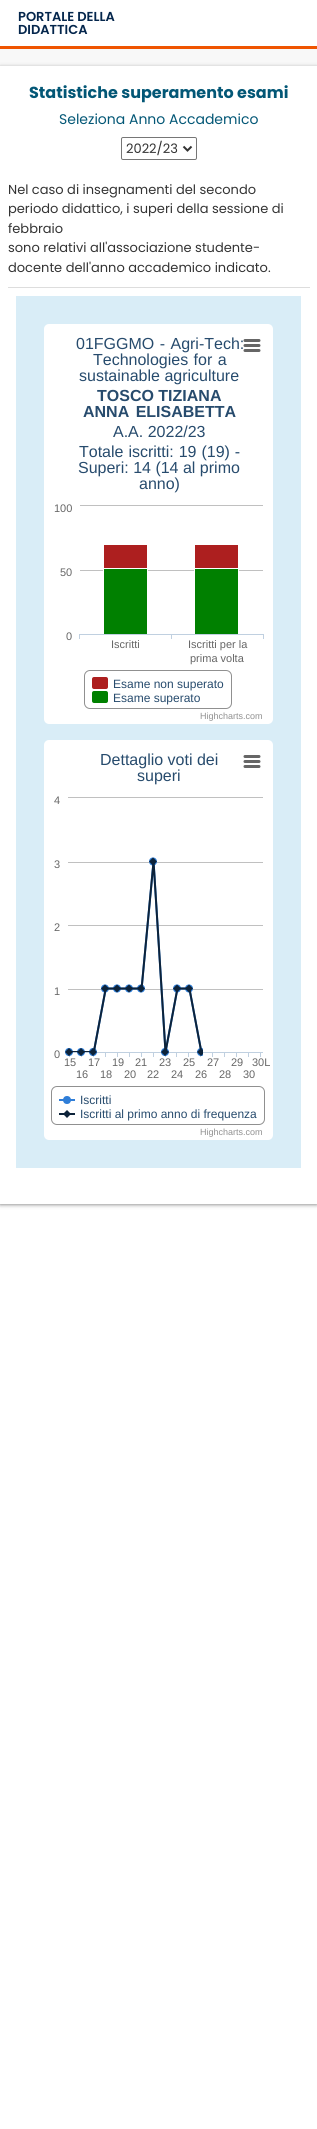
#include <cairo/cairo.h>
#include <math.h>
#include <stddef.h>

typedef struct { double x, y; const char *s; } line_t;
static cairo_t *cr;

static void rgb(unsigned color)
{
	cairo_set_source_rgb(cr, (color >> 16) / 255.0, (color >> 8 & 255) / 255.0, (color & 255) / 255.0);
}

static void tracked(double x, double y, const char *s, double letter, double word)
{
	cairo_move_to(cr, x, y);
	while (*s) {
		char ch[5] = {0};
		int n = 0;
		do ch[n++] = *s++; while ((*s & 0xC0) == 0x80);
		cairo_show_text(cr, ch);
		cairo_rel_move_to(cr, letter + word * (*ch == ' '), 0);
	}
}

static void rrect(double x, double y, double w, double h, double r)
{
	cairo_new_sub_path(cr);
	cairo_arc(cr, x + w - r, y + h - r, r, 0, M_PI / 2);
	cairo_arc(cr, x + r, y + h - r, r, M_PI / 2, M_PI);
	cairo_arc(cr, x + r, y + r, r, M_PI, 1.5 * M_PI);
	cairo_arc(cr, x + w - r, y + r, r, 1.5 * M_PI, 2 * M_PI);
	cairo_close_path(cr);
}

static void soft_shadow(double x, double y, double w, double h, double r, double blur, double alpha)
{
	cairo_push_group_with_content(cr, CAIRO_CONTENT_ALPHA);
	cairo_set_operator(cr, CAIRO_OPERATOR_SOURCE);
	for (int i = 15; i >= -15 && fmin(w, h) + blur * i / 3 > 0; i -= 2) {
		double e = blur * i / 6;
		cairo_set_source_rgba(cr, 0, 0, 0, alpha * erfc((i - 1) / 8.5) / 2);
		rrect(x - e, y - e, w + 2 * e, h + 2 * e, fmax(0, fmin(r + e + blur * .6, fmin(w, h) / 2 + e)));
		cairo_fill(cr);
	}
	cairo_pattern_t *soft = cairo_pop_group(cr);
	cairo_mask(cr, soft);
	cairo_pattern_destroy(soft);
}

static void image(const char *path, double x, double y, double w, double h)
{
	cairo_surface_t *image = cairo_image_surface_create_from_png(path);
	cairo_save(cr);
	cairo_set_source_surface(cr, image, x, y);
	cairo_rectangle(cr, x, y, w, h);
	cairo_fill(cr);
	cairo_restore(cr);
	cairo_surface_destroy(image);
}

int main(void) {
	cairo_surface_t *surface = cairo_image_surface_create(CAIRO_FORMAT_RGB24, 317, 2129);
	cr = cairo_create(surface);
	cairo_font_options_t *options = cairo_font_options_create();
	cairo_font_options_set_hint_metrics(options, CAIRO_HINT_METRICS_OFF);
	cairo_font_options_set_hint_style(options, CAIRO_HINT_STYLE_NONE);
	cairo_set_font_options(cr, options);
	cairo_set_miter_limit(cr, 4);
	rgb(0xffffff);
	cairo_paint(cr);
	rgb(0xef5400);
	cairo_rectangle(cr, 0, 46, 317, 3);
	cairo_fill(cr);
	rgb(0xf8f8f8);
	cairo_rectangle(cr, 0, 49, 317, 1156);
	cairo_fill(cr);
	rgb(0x000000);
	soft_shadow(0, 67, 317, 1138, 0, 2, 0.4);
	rgb(0xffffff);
	cairo_rectangle(cr, 0, 66, 317, 1138);
	cairo_fill(cr);
	rrect(121.5, 137.5, 75, 22, 1.5);
	rgb(0x767676);
	cairo_set_line_width(cr, 1);
	cairo_stroke(cr);
	cairo_new_path(cr);
	cairo_move_to(cr, 183.5, 146.5);
	cairo_line_to(cr, 187.5, 150.5);
	cairo_line_to(cr, 191.5, 146.5);
	rgb(0x333333);
	cairo_set_line_width(cr, 2);
	cairo_stroke(cr);
	rgb(0xdddddd);
	cairo_rectangle(cr, 8, 287, 302, 1);
	cairo_fill(cr);
	rgb(0xd9edf7);
	cairo_rectangle(cr, 16, 296, 285, 872);
	cairo_fill(cr);
	image("img/1.png", 44, 324, 229, 400);
	image("img/2.png", 44, 740, 229, 400);
	cairo_select_font_face(cr, "Poppins SemiBold", CAIRO_FONT_SLANT_NORMAL, CAIRO_FONT_WEIGHT_NORMAL);
	cairo_set_font_size(cr, 13);
	rgb(0x04264c);
	cairo_move_to(cr, 18, 21);
	cairo_show_text(cr, "PORTALE DELLA");
	cairo_move_to(cr, 18, 34);
	cairo_show_text(cr, "DIDATTICA");
	cairo_select_font_face(cr, "Poppins", CAIRO_FONT_SLANT_NORMAL, CAIRO_FONT_WEIGHT_BOLD);
	cairo_set_font_size(cr, 16);
	rgb(0x035776);
	cairo_move_to(cr, 29, 98);
	cairo_show_text(cr, "Statistiche superamento esami");
	cairo_select_font_face(cr, "Poppins", CAIRO_FONT_SLANT_NORMAL, CAIRO_FONT_WEIGHT_NORMAL);
	cairo_set_font_size(cr, 14);
	cairo_move_to(cr, 59, 124);
	cairo_show_text(cr, "Seleziona Anno Accademico");
	cairo_set_font_size(cr, 13);
	rgb(0x333333);
	{
		static const line_t items[] = {
			{126, 153, "2022/23"},
			{8, 194, "Nel caso di insegnamenti del secondo"},
			{8, 213, "periodo didattico, i superi della sessione di"},
			{8, 233, "febbraio"},
			{8, 252, "sono relativi all'associazione studente-"},
			{8, 272, "docente dell'anno accademico indicato."},
		};
		for (size_t i = 0; i < sizeof items / sizeof *items; i++) {
			cairo_move_to(cr, items[i].x, items[i].y);
			cairo_show_text(cr, items[i].s);
		}
	}
	cairo_select_font_face(cr, "Liberation Sans", CAIRO_FONT_SLANT_NORMAL, CAIRO_FONT_WEIGHT_NORMAL);
	cairo_set_font_size(cr, 16);
	rgb(0x274b6d);
	tracked(76, 349, "01FGGMO - Agri-Tech:", 0, 1);
	tracked(93, 365, "Technologies for a", 0, 1);
	cairo_move_to(cr, 79, 381);
	cairo_show_text(cr, "sustainable agriculture");
	cairo_select_font_face(cr, "Liberation Sans", CAIRO_FONT_SLANT_NORMAL, CAIRO_FONT_WEIGHT_BOLD);
	cairo_move_to(cr, 97, 401);
	cairo_show_text(cr, "TOSCO TIZIANA");
	tracked(83, 417, "ANNA ELISABETTA", 0, 2);
	cairo_select_font_face(cr, "Liberation Sans", CAIRO_FONT_SLANT_NORMAL, CAIRO_FONT_WEIGHT_NORMAL);
	cairo_move_to(cr, 113, 437);
	cairo_show_text(cr, "A.A. 2022/23");
	tracked(79, 457, "Totale iscritti: 19 (19) -", 0, 0.5);
	cairo_move_to(cr, 78, 473);
	cairo_show_text(cr, "Superi: 14 (14 al primo");
	cairo_move_to(cr, 139, 489);
	cairo_show_text(cr, "anno)");
	cairo_set_font_size(cr, 11);
	rgb(0x666666);
	{
		static const line_t items[] = {
			{54, 512, "100"},
			{60, 576, "50"},
			{66, 640, "0"},
			{111, 648, "Iscritti"},
			{188, 648, "Iscritti per la"},
			{190, 662, "prima volta"},
		};
		for (size_t i = 0; i < sizeof items / sizeof *items; i++) {
			cairo_move_to(cr, items[i].x, items[i].y);
			cairo_show_text(cr, items[i].s);
		}
	}
	cairo_set_font_size(cr, 12);
	rgb(0x274b6d);
	cairo_move_to(cr, 113, 688);
	cairo_show_text(cr, "Esame non superato");
	cairo_move_to(cr, 113, 702);
	cairo_show_text(cr, "Esame superato");
	cairo_set_font_size(cr, 9);
	rgb(0x909090);
	cairo_move_to(cr, 200, 719);
	cairo_show_text(cr, "Highcharts.com");
	cairo_set_font_size(cr, 16);
	rgb(0x274b6d);
	cairo_move_to(cr, 100, 765);
	cairo_show_text(cr, "Dettaglio voti dei");
	cairo_move_to(cr, 137, 781);
	cairo_show_text(cr, "superi");
	cairo_set_font_size(cr, 11);
	rgb(0x666666);
	{
		static const line_t items[] = {
			{54, 804, "4"},
			{54, 868, "3"},
			{54, 931, "2"},
			{54, 995, "1"},
			{54, 1058, "0"},
			{64, 1066, "15"},
			{88, 1066, "17"},
			{112, 1066, "19"},
			{135, 1066, "21"},
			{159, 1066, "23"},
			{183, 1066, "25"},
			{207, 1066, "27"},
			{231, 1066, "29"},
			{252, 1066, "30L"},
			{76, 1078, "16"},
			{100, 1078, "18"},
			{124, 1078, "20"},
			{147, 1078, "22"},
			{171, 1078, "24"},
			{195, 1078, "26"},
			{219, 1078, "28"},
			{243, 1078, "30"},
		};
		for (size_t i = 0; i < sizeof items / sizeof *items; i++) {
			cairo_move_to(cr, items[i].x, items[i].y);
			cairo_show_text(cr, items[i].s);
		}
	}
	cairo_set_font_size(cr, 12);
	rgb(0x274b6d);
	cairo_move_to(cr, 80, 1104);
	cairo_show_text(cr, "Iscritti");
	cairo_move_to(cr, 80, 1118);
	cairo_show_text(cr, "Iscritti al primo anno di frequenza");
	cairo_set_font_size(cr, 9);
	rgb(0x909090);
	cairo_move_to(cr, 200, 1135);
	cairo_show_text(cr, "Highcharts.com");
	cairo_surface_write_to_png(surface, "page.png");
	cairo_font_options_destroy(options);
	cairo_destroy(cr);
	cairo_surface_destroy(surface);
	return 0;
}
